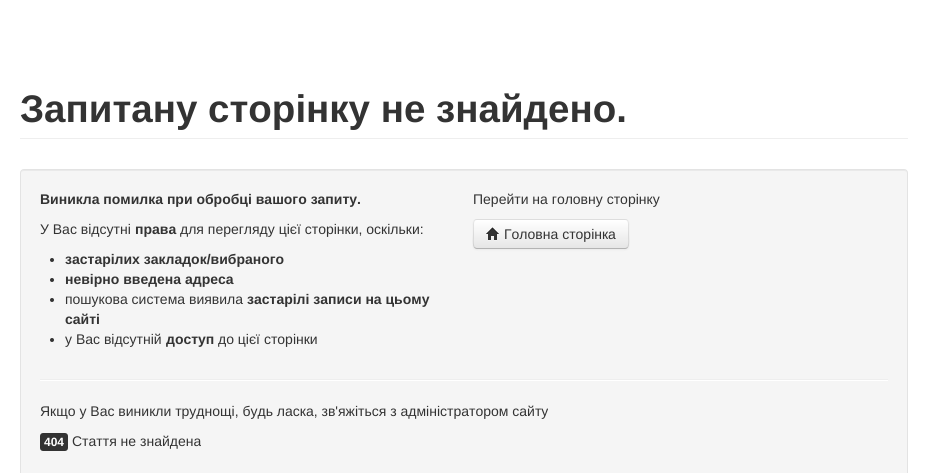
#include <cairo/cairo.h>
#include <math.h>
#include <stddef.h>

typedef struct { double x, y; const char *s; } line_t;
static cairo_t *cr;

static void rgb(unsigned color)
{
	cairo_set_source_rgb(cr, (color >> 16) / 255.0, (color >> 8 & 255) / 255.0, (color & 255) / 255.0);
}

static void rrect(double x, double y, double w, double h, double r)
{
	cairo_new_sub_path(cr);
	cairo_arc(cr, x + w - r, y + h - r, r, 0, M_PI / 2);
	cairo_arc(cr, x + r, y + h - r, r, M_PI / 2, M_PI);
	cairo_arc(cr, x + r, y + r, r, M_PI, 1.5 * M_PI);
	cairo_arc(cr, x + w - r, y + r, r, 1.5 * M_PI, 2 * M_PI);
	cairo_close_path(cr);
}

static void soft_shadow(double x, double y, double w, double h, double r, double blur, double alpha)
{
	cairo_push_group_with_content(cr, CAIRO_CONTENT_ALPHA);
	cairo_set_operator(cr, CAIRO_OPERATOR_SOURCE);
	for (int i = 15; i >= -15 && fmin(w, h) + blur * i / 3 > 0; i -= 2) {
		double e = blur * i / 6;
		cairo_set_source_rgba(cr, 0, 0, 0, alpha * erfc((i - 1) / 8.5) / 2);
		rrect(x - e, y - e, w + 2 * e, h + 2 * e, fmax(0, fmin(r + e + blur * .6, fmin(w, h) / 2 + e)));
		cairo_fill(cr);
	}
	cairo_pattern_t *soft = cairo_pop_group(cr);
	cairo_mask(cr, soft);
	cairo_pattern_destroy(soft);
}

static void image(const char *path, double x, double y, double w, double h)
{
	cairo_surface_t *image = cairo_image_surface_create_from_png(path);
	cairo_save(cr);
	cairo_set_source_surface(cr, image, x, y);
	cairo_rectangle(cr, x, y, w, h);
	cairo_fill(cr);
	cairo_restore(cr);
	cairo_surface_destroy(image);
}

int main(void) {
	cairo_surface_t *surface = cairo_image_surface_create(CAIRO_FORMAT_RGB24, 928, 473);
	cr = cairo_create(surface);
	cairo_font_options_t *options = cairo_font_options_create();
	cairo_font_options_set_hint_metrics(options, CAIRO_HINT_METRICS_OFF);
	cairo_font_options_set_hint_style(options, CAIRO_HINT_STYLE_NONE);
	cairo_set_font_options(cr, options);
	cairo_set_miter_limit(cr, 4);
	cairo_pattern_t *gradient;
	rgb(0xffffff);
	cairo_paint(cr);
	rgb(0xeeeeee);
	cairo_rectangle(cr, 20, 138, 888, 1);
	cairo_fill(cr);
	rgb(0xf5f5f5);
	rrect(20, 169, 888, 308, 4);
	cairo_fill(cr);
	rgb(0xe9e9e9);
	cairo_new_path(cr);
	cairo_move_to(cr, 24, 171);
	cairo_line_to(cr, 904, 171);
	cairo_curve_to(cr, 906, 171, 907, 172, 907, 174);
	cairo_curve_to(cr, 907, 172, 906, 170, 904, 170);
	cairo_line_to(cr, 24, 170);
	cairo_curve_to(cr, 22, 170, 21, 172, 21, 174);
	cairo_curve_to(cr, 21, 172, 22, 171, 24, 171);
	cairo_close_path(cr);
	cairo_fill(cr);
	rrect(20.5, 169.5, 887, 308, 3.5);
	rgb(0xe3e3e3);
	cairo_set_line_width(cr, 1);
	cairo_stroke(cr);
	rgb(0x333333);
	cairo_arc(cr, 52, 260, 2, 0, 2 * M_PI);
	cairo_fill(cr);
	cairo_arc(cr, 52, 280, 2, 0, 2 * M_PI);
	cairo_fill(cr);
	cairo_arc(cr, 52, 300, 2, 0, 2 * M_PI);
	cairo_fill(cr);
	cairo_arc(cr, 52, 340, 2, 0, 2 * M_PI);
	cairo_fill(cr);
	rgb(0x000000);
	soft_shadow(473, 220, 156, 30, 4, 1, 0.05);
	rgb(0xf5f5f5);
	rrect(473, 219, 156, 30, 4);
	cairo_fill(cr);
	cairo_save(cr);
	rrect(473, 219, 156, 30, 4);
	cairo_clip(cr);
	gradient = cairo_pattern_create_linear(551, 220, 551, 248);
	cairo_pattern_add_color_stop_rgba(gradient, 0, 1, 1, 1, 1);
	cairo_pattern_add_color_stop_rgba(gradient, 1, 0.902, 0.902, 0.902, 1);
	cairo_set_source(cr, gradient);
	cairo_pattern_destroy(gradient);
	cairo_rectangle(cr, 473, 220, 156, 28);
	cairo_fill(cr);
	cairo_restore(cr);
	cairo_new_path(cr);
	cairo_move_to(cr, 627.5, 247.5);
	cairo_curve_to(cr, 627, 248, 626, 248.5, 625, 248.5);
	cairo_line_to(cr, 477, 248.5);
	cairo_curve_to(cr, 476, 248.5, 475, 248, 474.5, 247.5);
	rgb(0xb3b3b3);
	cairo_stroke(cr);
	cairo_new_path(cr);
	cairo_move_to(cr, 474.5, 247.5);
	cairo_curve_to(cr, 472.5, 245.5, 473.5, 237, 473.5, 234);
	cairo_line_to(cr, 473.5, 226.5);
	cairo_curve_to(cr, 473.5, 224, 473, 219.5, 477, 219.5);
	cairo_line_to(cr, 625, 219.5);
	cairo_curve_to(cr, 629, 219.5, 628.5, 224, 628.5, 226.5);
	cairo_line_to(cr, 628.5, 234);
	cairo_curve_to(cr, 628.5, 237, 629.5, 245.5, 627.5, 247.5);
	cairo_set_source_rgba(cr, 0, 0, 0, 0.1);
	cairo_stroke(cr);
	image("img/1.png", 486, 227, 13, 14);
	rgb(0xeeeeee);
	cairo_rectangle(cr, 40, 379, 848, 1);
	cairo_fill(cr);
	rgb(0xffffff);
	cairo_rectangle(cr, 40, 380, 848, 1);
	cairo_fill(cr);
	rgb(0x333333);
	rrect(40, 433, 28, 18, 3);
	cairo_fill(cr);
	cairo_select_font_face(cr, "Liberation Sans", CAIRO_FONT_SLANT_NORMAL, CAIRO_FONT_WEIGHT_BOLD);
	cairo_set_font_size(cr, 38.5);
	cairo_move_to(cr, 20, 122);
	cairo_show_text(cr, "Запитану сторінку не знайдено.");
	cairo_set_font_size(cr, 14);
	cairo_move_to(cr, 40, 204);
	cairo_show_text(cr, "Виникла помилка при обробці вашого запиту.");
	cairo_select_font_face(cr, "Liberation Sans", CAIRO_FONT_SLANT_NORMAL, CAIRO_FONT_WEIGHT_NORMAL);
	cairo_move_to(cr, 40, 234);
	cairo_show_text(cr, "У Вас відсутні");
	cairo_select_font_face(cr, "Liberation Sans", CAIRO_FONT_SLANT_NORMAL, CAIRO_FONT_WEIGHT_BOLD);
	cairo_move_to(cr, 135, 234);
	cairo_show_text(cr, "права");
	cairo_select_font_face(cr, "Liberation Sans", CAIRO_FONT_SLANT_NORMAL, CAIRO_FONT_WEIGHT_NORMAL);
	cairo_move_to(cr, 180, 234);
	cairo_show_text(cr, "для перегляду цієї сторінки, оскільки:");
	cairo_select_font_face(cr, "Liberation Sans", CAIRO_FONT_SLANT_NORMAL, CAIRO_FONT_WEIGHT_BOLD);
	cairo_move_to(cr, 65, 264);
	cairo_show_text(cr, "застарілих закладок/вибраного");
	cairo_move_to(cr, 65, 284);
	cairo_show_text(cr, "невірно введена адреса");
	cairo_select_font_face(cr, "Liberation Sans", CAIRO_FONT_SLANT_NORMAL, CAIRO_FONT_WEIGHT_NORMAL);
	cairo_move_to(cr, 65, 304);
	cairo_show_text(cr, "пошукова система виявила");
	cairo_select_font_face(cr, "Liberation Sans", CAIRO_FONT_SLANT_NORMAL, CAIRO_FONT_WEIGHT_BOLD);
	cairo_move_to(cr, 247, 304);
	cairo_show_text(cr, "застарілі записи на цьому");
	cairo_move_to(cr, 65, 324);
	cairo_show_text(cr, "сайті");
	cairo_select_font_face(cr, "Liberation Sans", CAIRO_FONT_SLANT_NORMAL, CAIRO_FONT_WEIGHT_NORMAL);
	cairo_move_to(cr, 65, 344);
	cairo_show_text(cr, "у Вас відсутній");
	cairo_select_font_face(cr, "Liberation Sans", CAIRO_FONT_SLANT_NORMAL, CAIRO_FONT_WEIGHT_BOLD);
	cairo_move_to(cr, 166, 344);
	cairo_show_text(cr, "доступ");
	cairo_select_font_face(cr, "Liberation Sans", CAIRO_FONT_SLANT_NORMAL, CAIRO_FONT_WEIGHT_NORMAL);
	{
		static const line_t items[] = {
			{218, 344, "до цієї сторінки"},
			{473, 204, "Перейти на головну сторінку"},
			{504, 239, "Головна сторінка"},
			{40, 416, "Якщо у Вас виникли труднощі, будь ласка, зв'яжіться з адміністратором сайту"},
		};
		for (size_t i = 0; i < sizeof items / sizeof *items; i++) {
			cairo_move_to(cr, items[i].x, items[i].y);
			cairo_show_text(cr, items[i].s);
		}
	}
	cairo_select_font_face(cr, "Liberation Sans", CAIRO_FONT_SLANT_NORMAL, CAIRO_FONT_WEIGHT_BOLD);
	cairo_set_font_size(cr, 12);
	rgb(0xffffff);
	cairo_move_to(cr, 44, 446);
	cairo_show_text(cr, "404");
	cairo_select_font_face(cr, "Liberation Sans", CAIRO_FONT_SLANT_NORMAL, CAIRO_FONT_WEIGHT_NORMAL);
	cairo_set_font_size(cr, 14);
	rgb(0x333333);
	cairo_move_to(cr, 72, 446);
	cairo_show_text(cr, "Стаття не знайдена");
	cairo_surface_write_to_png(surface, "page.png");
	cairo_font_options_destroy(options);
	cairo_destroy(cr);
	cairo_surface_destroy(surface);
	return 0;
}
